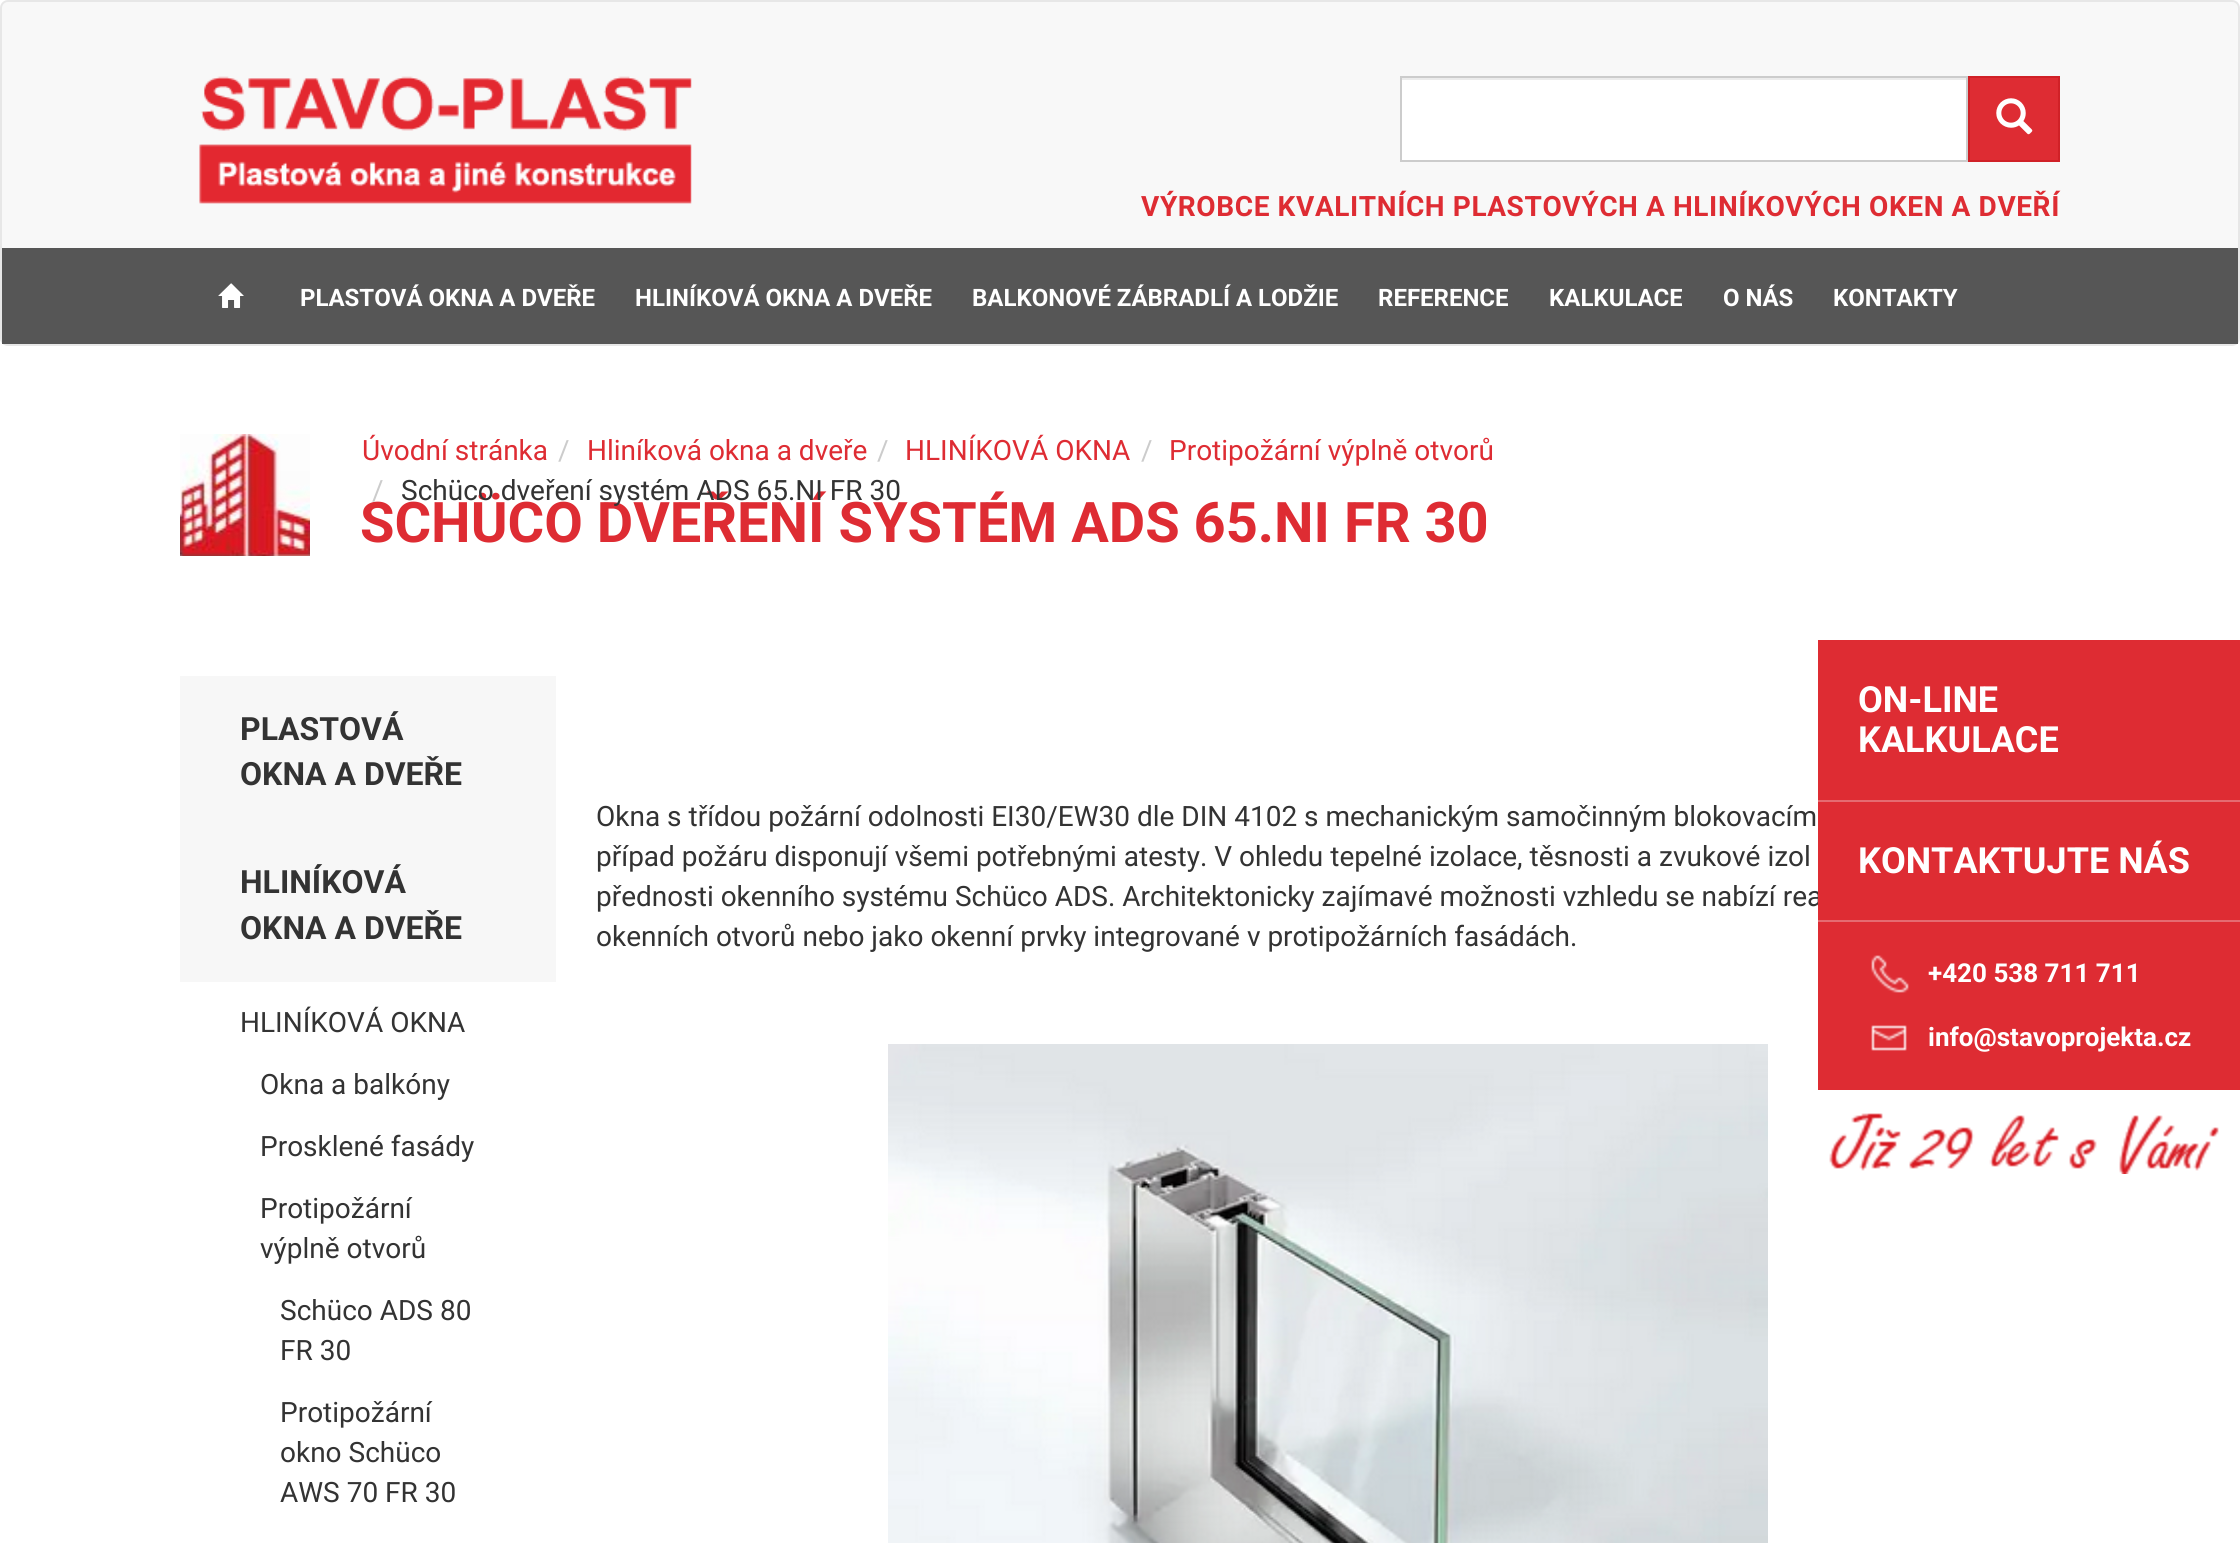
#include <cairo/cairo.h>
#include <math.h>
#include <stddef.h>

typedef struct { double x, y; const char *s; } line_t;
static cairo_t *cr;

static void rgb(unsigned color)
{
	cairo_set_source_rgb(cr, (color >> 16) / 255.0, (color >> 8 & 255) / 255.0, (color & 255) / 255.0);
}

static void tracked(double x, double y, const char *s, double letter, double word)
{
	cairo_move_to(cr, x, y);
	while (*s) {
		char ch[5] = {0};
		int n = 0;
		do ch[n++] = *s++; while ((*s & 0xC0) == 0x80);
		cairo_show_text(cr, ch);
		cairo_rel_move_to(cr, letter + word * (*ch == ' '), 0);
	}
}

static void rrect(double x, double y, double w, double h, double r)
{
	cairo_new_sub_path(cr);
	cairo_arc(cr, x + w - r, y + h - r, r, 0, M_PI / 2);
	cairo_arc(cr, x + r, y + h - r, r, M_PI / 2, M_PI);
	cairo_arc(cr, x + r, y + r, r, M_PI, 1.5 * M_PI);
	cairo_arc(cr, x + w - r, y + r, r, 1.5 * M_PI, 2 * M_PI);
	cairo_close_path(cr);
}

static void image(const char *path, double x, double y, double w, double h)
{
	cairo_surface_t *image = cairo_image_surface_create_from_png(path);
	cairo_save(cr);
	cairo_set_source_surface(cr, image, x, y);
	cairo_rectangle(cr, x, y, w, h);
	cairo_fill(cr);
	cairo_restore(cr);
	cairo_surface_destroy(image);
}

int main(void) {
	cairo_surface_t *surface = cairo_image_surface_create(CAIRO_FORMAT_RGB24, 2240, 1543);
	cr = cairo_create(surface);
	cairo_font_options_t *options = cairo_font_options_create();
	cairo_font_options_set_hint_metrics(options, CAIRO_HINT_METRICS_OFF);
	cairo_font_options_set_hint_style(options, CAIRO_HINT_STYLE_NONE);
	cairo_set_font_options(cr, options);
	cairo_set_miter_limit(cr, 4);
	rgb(0xffffff);
	cairo_paint(cr);
	rgb(0xf8f8f8);
	rrect(1, 1, 2238, 344, 7);
	cairo_fill_preserve(cr);
	rgb(0xe7e7e7);
	cairo_stroke(cr);
	image("img/1.png", 199, 76, 493, 128);
	rgb(0xffffff);
	cairo_rectangle(cr, 1402, 80, 564, 80);
	cairo_fill(cr);
	rgb(0xececec);
	cairo_rectangle(cr, 1402, 78, 564, 2);
	cairo_fill(cr);
	cairo_rectangle(cr, 1401, 77, 566, 84);
	rgb(0xcccccc);
	cairo_stroke(cr);
	rgb(0xde2c33);
	cairo_rectangle(cr, 1969, 77, 90, 84);
	cairo_fill_preserve(cr);
	rgb(0xd02127);
	cairo_stroke(cr);
	image("img/2.png", 1996, 98, 37, 37);
	rgb(0x565656);
	cairo_rectangle(cr, 2, 248, 2236, 96);
	cairo_fill(cr);
	image("img/3.png", 218, 283, 26, 25);
	image("img/4.png", 180, 434, 130, 122);
	rgb(0xf7f7f7);
	cairo_rectangle(cr, 180, 676, 376, 306);
	cairo_fill(cr);
	image("img/5.png", 888, 1044, 880, 499);
	image("img/8.png", 1829, 1113, 390, 61);
	cairo_select_font_face(cr, "Roboto", CAIRO_FONT_SLANT_NORMAL, CAIRO_FONT_WEIGHT_BOLD);
	cairo_set_font_size(cr, 28);
	rgb(0xde2c33);
	tracked(1141, 216, "VÝROBCE KVALITNÍCH PLASTOVÝCH A HLINÍKOVÝCH OKEN A DVEŘÍ", 0.6, 0);
	cairo_set_font_size(cr, 24);
	rgb(0xffffff);
	{
		static const line_t items[] = {
			{300, 306, "PLASTOVÁ OKNA A DVEŘE"},
			{635, 306, "HLINÍKOVÁ OKNA A DVEŘE"},
			{972, 306, "BALKONOVÉ ZÁBRADLÍ A LODŽIE"},
			{1378, 306, "REFERENCE"},
			{1549, 306, "KALKULACE"},
			{1723, 306, "O NÁS"},
			{1833, 306, "KONTAKTY"},
		};
		for (size_t i = 0; i < sizeof items / sizeof *items; i++) {
			cairo_move_to(cr, items[i].x, items[i].y);
			cairo_show_text(cr, items[i].s);
		}
	}
	cairo_select_font_face(cr, "Roboto", CAIRO_FONT_SLANT_NORMAL, CAIRO_FONT_WEIGHT_NORMAL);
	cairo_set_font_size(cr, 28);
	rgb(0xde2c33);
	cairo_move_to(cr, 362, 460);
	cairo_show_text(cr, "Úvodní stránka");
	rgb(0xcccccc);
	cairo_move_to(cr, 558, 460);
	cairo_show_text(cr, "/");
	rgb(0xde2c33);
	cairo_move_to(cr, 587, 460);
	cairo_show_text(cr, "Hliníková okna a dveře");
	rgb(0xcccccc);
	cairo_move_to(cr, 877, 460);
	cairo_show_text(cr, "/");
	rgb(0xde2c33);
	cairo_move_to(cr, 905, 460);
	cairo_show_text(cr, "HLINÍKOVÁ OKNA");
	rgb(0xcccccc);
	cairo_move_to(cr, 1141, 460);
	cairo_show_text(cr, "/");
	rgb(0xde2c33);
	cairo_move_to(cr, 1169, 460);
	cairo_show_text(cr, "Protipožární výplně otvorů");
	cairo_select_font_face(cr, "Roboto", CAIRO_FONT_SLANT_NORMAL, CAIRO_FONT_WEIGHT_BOLD);
	cairo_set_font_size(cr, 56);
	cairo_move_to(cr, 360, 542);
	cairo_show_text(cr, "SCHÜCO DVEŘENÍ SYSTÉM ADS 65.NI FR 30");
	cairo_select_font_face(cr, "Roboto", CAIRO_FONT_SLANT_NORMAL, CAIRO_FONT_WEIGHT_NORMAL);
	cairo_set_font_size(cr, 28);
	rgb(0x333333);
	cairo_move_to(cr, 401, 500);
	cairo_show_text(cr, "Schüco dveření systém ADS 65.NI FR 30");
	rgb(0xcccccc);
	cairo_move_to(cr, 372, 500);
	cairo_show_text(cr, "/");
	cairo_select_font_face(cr, "Roboto", CAIRO_FONT_SLANT_NORMAL, CAIRO_FONT_WEIGHT_BOLD);
	cairo_set_font_size(cr, 32);
	rgb(0x333333);
	{
		static const line_t items[] = {
			{240, 740, "PLASTOVÁ"},
			{240, 785, "OKNA A DVEŘE"},
			{240, 893, "HLINÍKOVÁ"},
			{240, 939, "OKNA A DVEŘE"},
		};
		for (size_t i = 0; i < sizeof items / sizeof *items; i++) {
			cairo_move_to(cr, items[i].x, items[i].y);
			cairo_show_text(cr, items[i].s);
		}
	}
	cairo_select_font_face(cr, "Roboto", CAIRO_FONT_SLANT_NORMAL, CAIRO_FONT_WEIGHT_NORMAL);
	cairo_set_font_size(cr, 28);
	{
		static const line_t items[] = {
			{240, 1032, "HLINÍKOVÁ OKNA"},
			{260, 1094, "Okna a balkóny"},
			{260, 1156, "Prosklené fasády"},
			{260, 1218, "Protipožární"},
			{260, 1258, "výplně otvorů"},
			{280, 1320, "Schüco ADS 80"},
			{280, 1360, "FR 30"},
			{280, 1422, "Protipožární"},
			{280, 1462, "okno Schüco"},
			{280, 1502, "AWS 70 FR 30"},
			{596, 826, "Okna s třídou požární odolnosti EI30/EW30 dle DIN 4102 s mechanickým samočinným blokovacím"},
			{596, 866, "případ požáru disponují všemi potřebnými atesty. V ohledu tepelné izolace, těsnosti a zvukové izol"},
			{596, 906, "přednosti okenního systému Schüco ADS. Architektonicky zajímavé možnosti vzhledu se nabízí rea"},
			{596, 946, "okenních otvorů nebo jako okenní prvky integrované v protipožárních fasádách."},
		};
		for (size_t i = 0; i < sizeof items / sizeof *items; i++) {
			cairo_move_to(cr, items[i].x, items[i].y);
			cairo_show_text(cr, items[i].s);
		}
	}
	rgb(0xde2c33);
	cairo_rectangle(cr, 1818, 640, 422, 450);
	cairo_fill(cr);
	rgb(0xe56b71);
	cairo_rectangle(cr, 1818, 800, 422, 2);
	cairo_fill(cr);
	cairo_select_font_face(cr, "Roboto", CAIRO_FONT_SLANT_NORMAL, CAIRO_FONT_WEIGHT_BOLD);
	cairo_set_font_size(cr, 36);
	rgb(0xffffff);
	cairo_move_to(cr, 1858, 712);
	cairo_show_text(cr, "ON-LINE");
	cairo_move_to(cr, 1858, 752);
	cairo_show_text(cr, "KALKULACE");
	rgb(0xe56b71);
	cairo_rectangle(cr, 1818, 920, 422, 2);
	cairo_fill(cr);
	rgb(0xffffff);
	cairo_move_to(cr, 1858, 873);
	cairo_show_text(cr, "KONTAKTUJTE NÁS");
	image("img/6.png", 1871, 955, 38, 38);
	cairo_set_font_size(cr, 26);
	cairo_move_to(cr, 1928, 982);
	cairo_show_text(cr, "+420 538 711 711");
	image("img/7.png", 1871, 1025, 36, 26);
	cairo_move_to(cr, 1928, 1046);
	cairo_show_text(cr, "info@stavoprojekta.cz");
	cairo_surface_write_to_png(surface, "page.png");
	cairo_font_options_destroy(options);
	cairo_destroy(cr);
	cairo_surface_destroy(surface);
	return 0;
}
